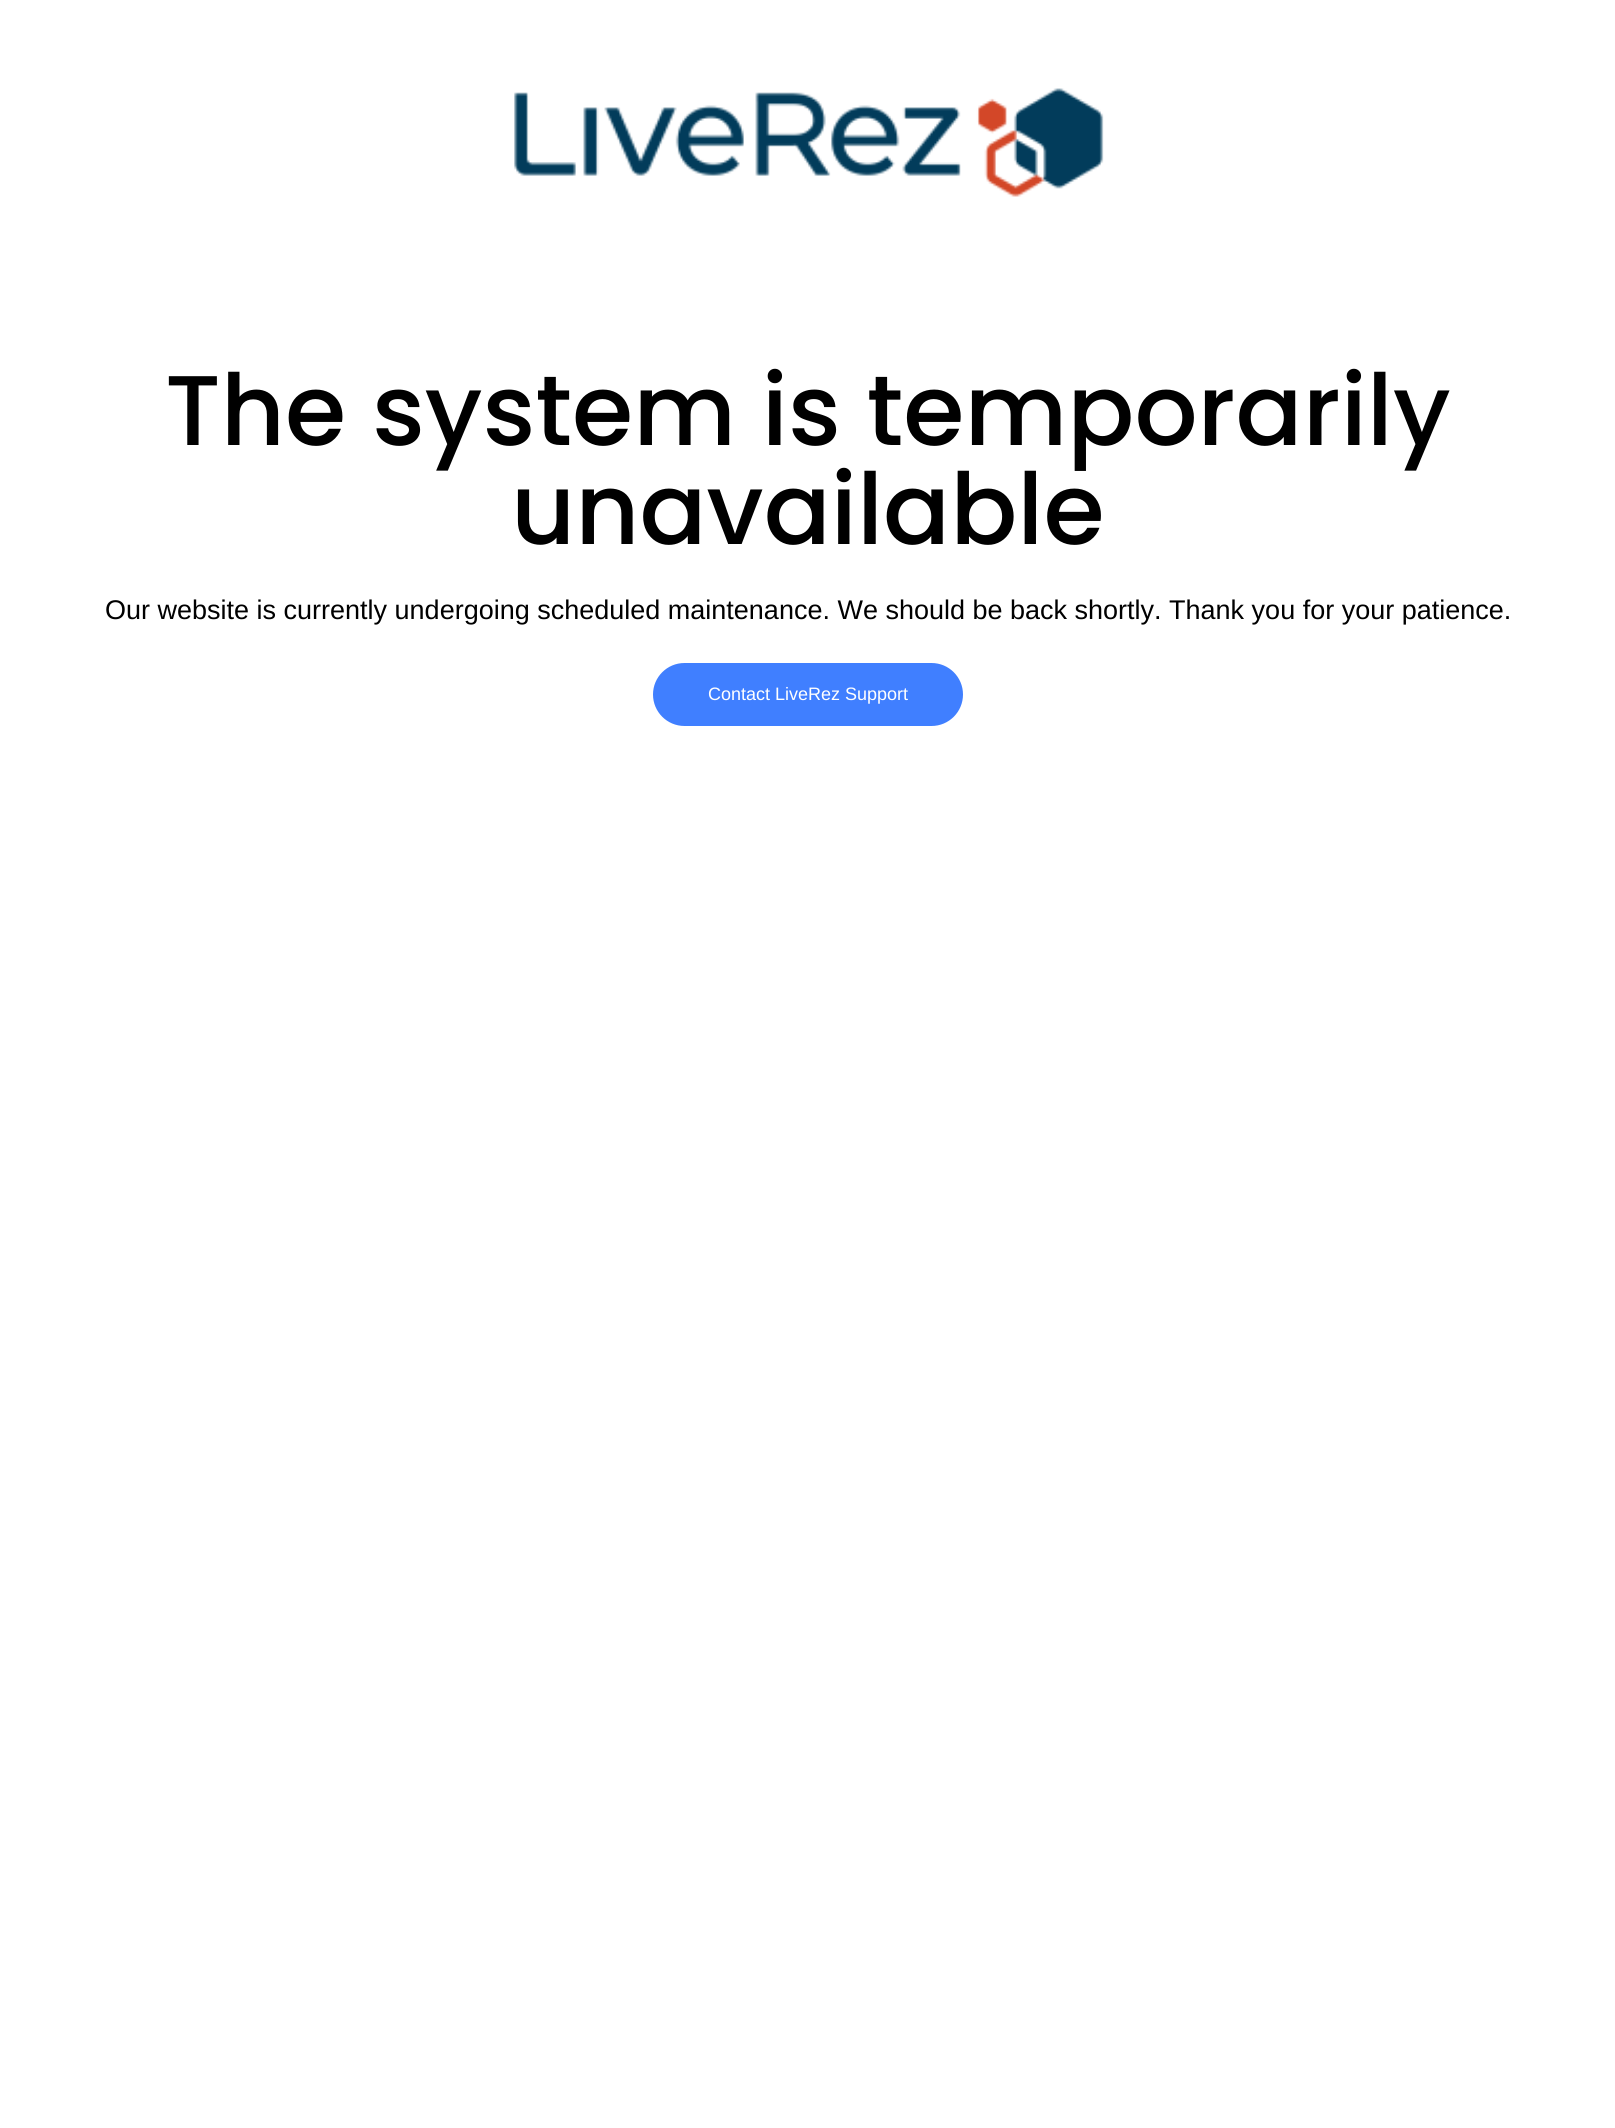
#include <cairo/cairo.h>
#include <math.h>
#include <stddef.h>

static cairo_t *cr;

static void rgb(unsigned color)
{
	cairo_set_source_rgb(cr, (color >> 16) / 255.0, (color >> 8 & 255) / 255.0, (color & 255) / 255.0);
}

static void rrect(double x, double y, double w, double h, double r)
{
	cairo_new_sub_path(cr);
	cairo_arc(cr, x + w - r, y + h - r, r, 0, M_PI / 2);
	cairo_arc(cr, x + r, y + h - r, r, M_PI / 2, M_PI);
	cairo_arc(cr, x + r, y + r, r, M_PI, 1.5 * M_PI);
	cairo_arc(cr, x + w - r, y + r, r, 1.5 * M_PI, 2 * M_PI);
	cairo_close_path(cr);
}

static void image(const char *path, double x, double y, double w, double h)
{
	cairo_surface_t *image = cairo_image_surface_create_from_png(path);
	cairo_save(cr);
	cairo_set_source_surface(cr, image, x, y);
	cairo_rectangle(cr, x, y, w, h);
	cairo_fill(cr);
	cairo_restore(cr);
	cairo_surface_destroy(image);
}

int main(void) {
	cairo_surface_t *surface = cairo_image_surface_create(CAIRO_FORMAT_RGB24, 1615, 2128);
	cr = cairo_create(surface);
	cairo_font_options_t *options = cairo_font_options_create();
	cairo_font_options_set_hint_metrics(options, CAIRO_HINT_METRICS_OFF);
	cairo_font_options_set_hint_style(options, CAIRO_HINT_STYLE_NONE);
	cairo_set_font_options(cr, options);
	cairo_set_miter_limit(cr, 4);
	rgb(0xffffff);
	cairo_paint(cr);
	image("img/1.png", 514, 88, 590, 109);
	rgb(0x407fff);
	rrect(654.5, 664.5, 307, 60, 30);
	cairo_fill_preserve(cr);
	cairo_set_line_width(cr, 3);
	cairo_stroke(cr);
	cairo_select_font_face(cr, "Poppins Medium", CAIRO_FONT_SLANT_NORMAL, CAIRO_FONT_WEIGHT_NORMAL);
	cairo_set_font_size(cr, 99);
	rgb(0x000000);
	cairo_move_to(cr, 165, 445);
	cairo_show_text(cr, "The system is temporarily");
	cairo_move_to(cr, 511, 544);
	cairo_show_text(cr, "unavailable");
	cairo_select_font_face(cr, "Liberation Sans", CAIRO_FONT_SLANT_NORMAL, CAIRO_FONT_WEIGHT_NORMAL);
	cairo_set_font_size(cr, 27);
	cairo_move_to(cr, 105, 619);
	cairo_show_text(cr, "Our website is currently undergoing scheduled maintenance. We should be back shortly. Thank you for your patience.");
	cairo_set_font_size(cr, 18);
	rgb(0xffffff);
	cairo_move_to(cr, 708, 700);
	cairo_show_text(cr, "Contact LiveRez Support");
	cairo_surface_write_to_png(surface, "page.png");
	cairo_font_options_destroy(options);
	cairo_destroy(cr);
	cairo_surface_destroy(surface);
	return 0;
}
